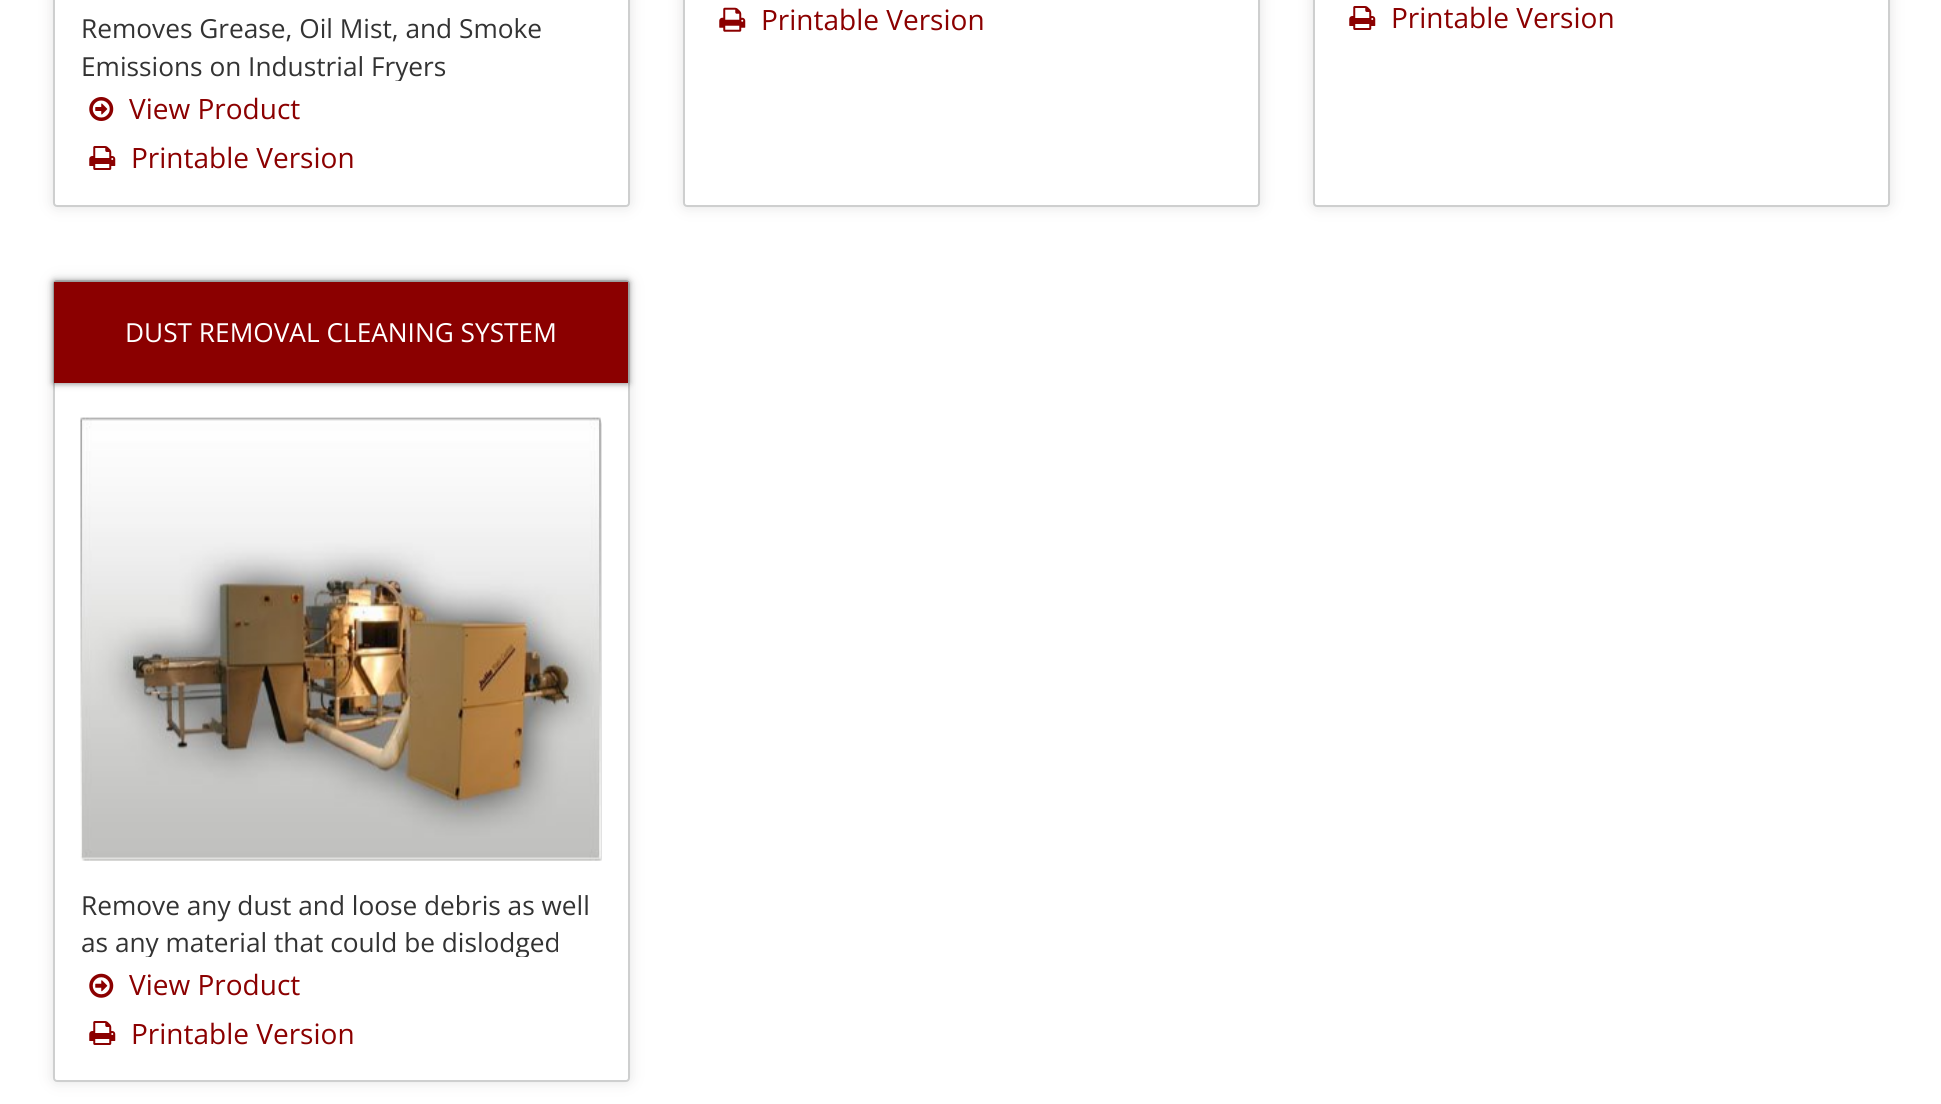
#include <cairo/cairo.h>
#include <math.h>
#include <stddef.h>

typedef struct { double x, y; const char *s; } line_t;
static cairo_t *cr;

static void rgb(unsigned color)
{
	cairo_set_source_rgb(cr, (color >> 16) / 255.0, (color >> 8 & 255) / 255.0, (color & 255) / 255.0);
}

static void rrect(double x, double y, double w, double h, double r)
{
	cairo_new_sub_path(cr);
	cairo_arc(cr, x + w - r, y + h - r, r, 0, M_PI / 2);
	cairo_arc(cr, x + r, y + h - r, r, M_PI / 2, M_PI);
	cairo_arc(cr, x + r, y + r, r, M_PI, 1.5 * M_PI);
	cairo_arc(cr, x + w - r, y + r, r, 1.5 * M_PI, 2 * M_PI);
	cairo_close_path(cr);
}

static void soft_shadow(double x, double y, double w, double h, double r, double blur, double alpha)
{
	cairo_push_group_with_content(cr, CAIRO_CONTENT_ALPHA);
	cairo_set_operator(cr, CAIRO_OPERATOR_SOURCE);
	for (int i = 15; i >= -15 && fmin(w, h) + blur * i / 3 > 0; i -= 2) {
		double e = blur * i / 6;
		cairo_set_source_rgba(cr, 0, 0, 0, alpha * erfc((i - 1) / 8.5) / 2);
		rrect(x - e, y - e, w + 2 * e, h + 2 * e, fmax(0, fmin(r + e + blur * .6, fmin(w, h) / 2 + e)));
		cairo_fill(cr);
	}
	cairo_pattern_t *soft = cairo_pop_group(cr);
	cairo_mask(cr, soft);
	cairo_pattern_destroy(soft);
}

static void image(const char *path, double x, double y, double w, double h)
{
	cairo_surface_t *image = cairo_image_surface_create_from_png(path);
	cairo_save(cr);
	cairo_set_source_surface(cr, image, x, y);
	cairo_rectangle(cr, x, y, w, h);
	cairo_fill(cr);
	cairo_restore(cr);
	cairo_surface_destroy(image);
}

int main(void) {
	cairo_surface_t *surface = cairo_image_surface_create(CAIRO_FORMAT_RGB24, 1941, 1104);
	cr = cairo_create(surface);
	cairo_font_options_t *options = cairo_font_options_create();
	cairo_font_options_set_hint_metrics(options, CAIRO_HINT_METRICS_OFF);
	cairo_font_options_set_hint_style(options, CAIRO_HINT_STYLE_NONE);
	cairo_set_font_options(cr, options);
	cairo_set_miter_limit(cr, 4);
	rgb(0xffffff);
	cairo_paint(cr);
	rgb(0xe4e3e3);
	soft_shadow(53, -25, 577, 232, 4, 7, 1);
	rgb(0xffffff);
	rrect(54, -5, 575, 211, 3);
	cairo_fill_preserve(cr);
	rgb(0xcecfcf);
	cairo_stroke(cr);
	image("img/1.png", 89, 97, 25, 24);
	image("img/2.png", 89, 146, 27, 24);
	rgb(0xe4e3e3);
	soft_shadow(683, -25, 577, 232, 4, 7, 1);
	rgb(0xffffff);
	rrect(684, -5, 575, 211, 3);
	cairo_fill_preserve(cr);
	rgb(0xcecfcf);
	cairo_stroke(cr);
	image("img/3.png", 719, 7, 27, 25);
	rgb(0xe4e3e3);
	soft_shadow(1313, -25, 577, 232, 4, 7, 1);
	rgb(0xffffff);
	rrect(1314, -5, 575, 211, 3);
	cairo_fill_preserve(cr);
	rgb(0xcecfcf);
	cairo_stroke(cr);
	image("img/2.png", 1349, 6, 27, 24);
	rgb(0xe4e3e3);
	soft_shadow(53, 280, 577, 802, 4, 7, 1);
	rgb(0xffffff);
	rrect(54, 281, 575, 800, 3);
	cairo_fill_preserve(cr);
	rgb(0xcecfcf);
	cairo_stroke(cr);
	rgb(0x000000);
	soft_shadow(54, 282, 574, 101, 0, 3.5, 0.55);
	rgb(0x8b0000);
	cairo_rectangle(cr, 54, 282, 574, 101);
	cairo_fill(cr);
	image("img/4.png", 80, 417, 522, 444);
	image("img/5.png", 89, 973, 25, 25);
	image("img/2.png", 89, 1021, 27, 24);
	cairo_select_font_face(cr, "Open Sans", CAIRO_FONT_SLANT_NORMAL, CAIRO_FONT_WEIGHT_NORMAL);
	cairo_set_font_size(cr, 26.25);
	rgb(0x333333);
	cairo_move_to(cr, 81, 38);
	cairo_show_text(cr, "Removes Grease, Oil Mist, and Smoke");
	cairo_save(cr);
	cairo_rectangle(cr, 81, 11, 521, 70);
	cairo_clip(cr);
	cairo_move_to(cr, 81, 76);
	cairo_show_text(cr, "Emissions on Industrial Fryers");
	cairo_restore(cr);
	cairo_set_font_size(cr, 28);
	rgb(0x8b0000);
	{
		static const line_t items[] = {
			{129, 119, "View Product"},
			{131, 168, "Printable Version"},
			{761, 30, "Printable Version"},
			{1391, 28, "Printable Version"},
		};
		for (size_t i = 0; i < sizeof items / sizeof *items; i++) {
			cairo_move_to(cr, items[i].x, items[i].y);
			cairo_show_text(cr, items[i].s);
		}
	}
	cairo_set_font_size(cr, 26.25);
	rgb(0xffffff);
	cairo_move_to(cr, 125, 342);
	cairo_show_text(cr, "DUST REMOVAL CLEANING SYSTEM");
	rgb(0x333333);
	cairo_move_to(cr, 81, 915);
	cairo_show_text(cr, "Remove any dust and loose debris as well");
	cairo_save(cr);
	cairo_rectangle(cr, 81, 887, 521, 70);
	cairo_clip(cr);
	cairo_move_to(cr, 81, 952);
	cairo_show_text(cr, "as any material that could be dislodged");
	cairo_restore(cr);
	cairo_set_font_size(cr, 28);
	rgb(0x8b0000);
	cairo_move_to(cr, 129, 995);
	cairo_show_text(cr, "View Product");
	cairo_move_to(cr, 131, 1044);
	cairo_show_text(cr, "Printable Version");
	cairo_surface_write_to_png(surface, "page.png");
	cairo_font_options_destroy(options);
	cairo_destroy(cr);
	cairo_surface_destroy(surface);
	return 0;
}
